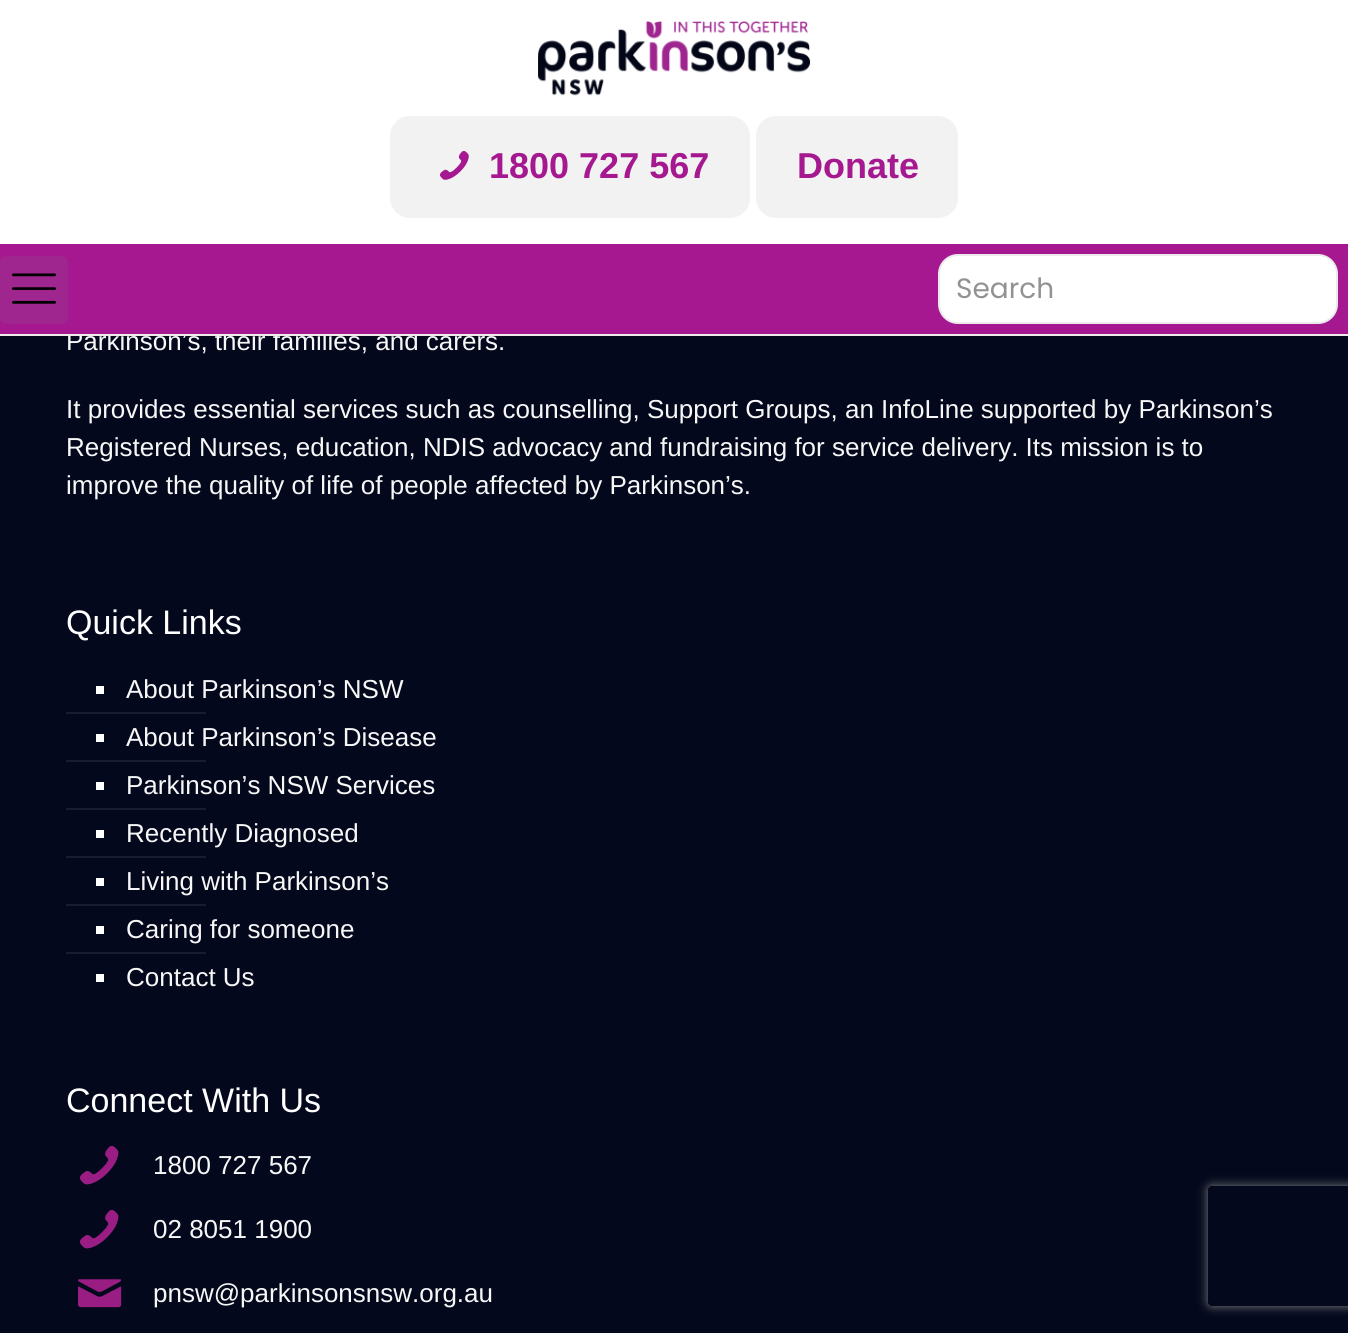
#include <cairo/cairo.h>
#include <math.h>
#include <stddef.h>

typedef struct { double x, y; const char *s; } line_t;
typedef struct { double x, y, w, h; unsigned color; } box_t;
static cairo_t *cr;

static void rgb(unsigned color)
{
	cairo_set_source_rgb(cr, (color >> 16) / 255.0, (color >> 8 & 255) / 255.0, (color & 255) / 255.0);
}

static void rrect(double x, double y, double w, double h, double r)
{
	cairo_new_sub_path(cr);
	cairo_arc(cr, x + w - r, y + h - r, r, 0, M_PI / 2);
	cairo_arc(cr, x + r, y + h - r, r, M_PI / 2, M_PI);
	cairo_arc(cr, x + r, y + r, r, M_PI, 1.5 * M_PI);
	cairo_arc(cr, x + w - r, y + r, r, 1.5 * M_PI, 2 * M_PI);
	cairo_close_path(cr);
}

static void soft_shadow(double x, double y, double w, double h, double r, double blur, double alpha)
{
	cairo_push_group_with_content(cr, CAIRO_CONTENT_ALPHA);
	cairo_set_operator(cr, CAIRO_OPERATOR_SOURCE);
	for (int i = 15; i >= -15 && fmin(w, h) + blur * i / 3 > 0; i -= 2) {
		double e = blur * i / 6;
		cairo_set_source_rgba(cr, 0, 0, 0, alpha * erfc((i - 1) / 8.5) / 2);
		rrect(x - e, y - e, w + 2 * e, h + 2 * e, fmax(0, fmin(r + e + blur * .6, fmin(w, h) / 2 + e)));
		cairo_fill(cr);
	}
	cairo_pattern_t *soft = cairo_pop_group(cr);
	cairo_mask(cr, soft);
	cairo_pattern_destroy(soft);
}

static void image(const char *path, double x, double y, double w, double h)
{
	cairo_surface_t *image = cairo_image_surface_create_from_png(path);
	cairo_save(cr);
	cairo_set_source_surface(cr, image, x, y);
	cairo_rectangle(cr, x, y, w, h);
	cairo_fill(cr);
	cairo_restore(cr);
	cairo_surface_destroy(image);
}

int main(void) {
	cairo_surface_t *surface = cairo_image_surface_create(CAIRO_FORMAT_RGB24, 1348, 1333);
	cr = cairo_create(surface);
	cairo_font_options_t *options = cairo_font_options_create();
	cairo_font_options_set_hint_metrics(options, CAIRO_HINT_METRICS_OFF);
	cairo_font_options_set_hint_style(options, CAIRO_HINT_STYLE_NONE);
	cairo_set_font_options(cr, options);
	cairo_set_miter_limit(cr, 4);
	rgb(0x03081c);
	cairo_paint(cr);
	rgb(0xffffff);
	cairo_rectangle(cr, 0, 0, 1348, 244);
	cairo_fill(cr);
	image("img/1.png", 538, 21, 273, 75);
	rgb(0xf2f2f2);
	rrect(390, 116, 360, 102, 20);
	cairo_fill(cr);
	image("img/2.png", 440, 151, 29, 29);
	rrect(756, 116, 202, 102, 20);
	cairo_fill(cr);
	{
		static const box_t items[] = {
			{96, 686, 8, 8, 0xffffff},
			{66, 712, 140, 2, 0x171c2e},
			{96, 734, 8, 8, 0xffffff},
			{66, 760, 140, 2, 0x171c2e},
			{96, 782, 8, 8, 0xffffff},
			{66, 808, 140, 2, 0x171c2e},
			{96, 830, 8, 8, 0xffffff},
			{66, 856, 140, 2, 0x171c2e},
			{96, 878, 8, 8, 0xffffff},
			{66, 904, 140, 2, 0x171c2e},
			{96, 926, 8, 8, 0xffffff},
			{66, 952, 140, 2, 0x171c2e},
			{96, 974, 8, 8, 0xffffff},
		};
		for (size_t i = 0; i < sizeof items / sizeof *items; i++) {
			rgb(items[i].color);
			cairo_rectangle(cr, items[i].x, items[i].y, items[i].w, items[i].h);
			cairo_fill(cr);
		}
	}
	image("img/4.png", 80, 1146, 39, 39);
	image("img/4.png", 80, 1210, 39, 39);
	image("img/5.png", 78, 1279, 44, 29);
	cairo_save(cr);
	cairo_set_fill_rule(cr, CAIRO_FILL_RULE_EVEN_ODD);
	cairo_new_path(cr);
	cairo_move_to(cr, 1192, 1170);
	cairo_line_to(cr, 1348, 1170);
	cairo_line_to(cr, 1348, 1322);
	cairo_line_to(cr, 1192, 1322);
	cairo_close_path(cr);
	cairo_move_to(cr, 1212, 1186);
	cairo_line_to(cr, 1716, 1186);
	cairo_curve_to(cr, 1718, 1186, 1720, 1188, 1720, 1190);
	cairo_line_to(cr, 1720, 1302);
	cairo_curve_to(cr, 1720, 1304, 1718, 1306, 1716, 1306);
	cairo_line_to(cr, 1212, 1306);
	cairo_curve_to(cr, 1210, 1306, 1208, 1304, 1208, 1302);
	cairo_line_to(cr, 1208, 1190);
	cairo_curve_to(cr, 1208, 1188, 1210, 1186, 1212, 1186);
	cairo_close_path(cr);
	cairo_clip(cr);
	rgb(0x808080);
	soft_shadow(1208, 1186, 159, 120, 4, 5, 1);
	cairo_restore(cr);
	cairo_select_font_face(cr, "Liberation Sans", CAIRO_FONT_SLANT_NORMAL, CAIRO_FONT_WEIGHT_BOLD);
	cairo_set_font_size(cr, 36);
	rgb(0xa51890);
	cairo_move_to(cr, 489, 178);
	cairo_show_text(cr, "1800 727 567");
	cairo_move_to(cr, 797, 178);
	cairo_show_text(cr, "Donate");
	cairo_select_font_face(cr, "Liberation Sans", CAIRO_FONT_SLANT_NORMAL, CAIRO_FONT_WEIGHT_NORMAL);
	cairo_set_font_size(cr, 26);
	rgb(0xf7f7f7);
	cairo_move_to(cr, 66, 350);
	cairo_show_text(cr, "Parkinson’s, their families, and carers.");
	rgb(0xa51890);
	cairo_rectangle(cr, 0, 244, 1348, 90);
	cairo_fill(cr);
	rgb(0x9f258f);
	rrect(0, 256, 68, 68, 6);
	cairo_fill(cr);
	image("img/3.png", 12, 273, 44, 31);
	rgb(0xffffff);
	rrect(939, 255, 398, 68, 19);
	cairo_fill_preserve(cr);
	rgb(0xebebeb);
	cairo_stroke(cr);
	cairo_select_font_face(cr, "Poppins", CAIRO_FONT_SLANT_NORMAL, CAIRO_FONT_WEIGHT_NORMAL);
	cairo_set_font_size(cr, 28);
	rgb(0x929292);
	cairo_move_to(cr, 956, 298);
	cairo_show_text(cr, "Search");
	rgb(0xefede9);
	cairo_rectangle(cr, 0, 334, 1348, 2);
	cairo_fill(cr);
	cairo_select_font_face(cr, "Liberation Sans", CAIRO_FONT_SLANT_NORMAL, CAIRO_FONT_WEIGHT_NORMAL);
	cairo_set_font_size(cr, 26);
	rgb(0xf7f7f7);
	{
		static const line_t items[] = {
			{66, 418, "It provides essential services such as counselling, Support Groups, an InfoLine supported by Parkinson’s"},
			{66, 456, "Registered Nurses, education, NDIS advocacy and fundraising for service delivery. Its mission is to"},
			{66, 494, "improve the quality of life of people affected by Parkinson’s."},
		};
		for (size_t i = 0; i < sizeof items / sizeof *items; i++) {
			cairo_move_to(cr, items[i].x, items[i].y);
			cairo_show_text(cr, items[i].s);
		}
	}
	cairo_set_font_size(cr, 34);
	rgb(0xffffff);
	cairo_move_to(cr, 66, 634);
	cairo_show_text(cr, "Quick Links");
	cairo_set_font_size(cr, 26);
	rgb(0xf7f7f7);
	{
		static const line_t items[] = {
			{126, 698, "About Parkinson’s NSW"},
			{126, 746, "About Parkinson’s Disease"},
			{126, 794, "Parkinson’s NSW Services"},
			{126, 842, "Recently Diagnosed"},
			{126, 890, "Living with Parkinson’s"},
			{126, 938, "Caring for someone"},
			{126, 986, "Contact Us"},
		};
		for (size_t i = 0; i < sizeof items / sizeof *items; i++) {
			cairo_move_to(cr, items[i].x, items[i].y);
			cairo_show_text(cr, items[i].s);
		}
	}
	cairo_set_font_size(cr, 34);
	rgb(0xffffff);
	cairo_move_to(cr, 66, 1112);
	cairo_show_text(cr, "Connect With Us");
	cairo_set_font_size(cr, 26);
	rgb(0xf7f7f7);
	{
		static const line_t items[] = {
			{153, 1174, "1800 727 567"},
			{153, 1238, "02 8051 1900"},
			{153, 1302, "pnsw@parkinsonsnsw.org.au"},
		};
		for (size_t i = 0; i < sizeof items / sizeof *items; i++) {
			cairo_move_to(cr, items[i].x, items[i].y);
			cairo_show_text(cr, items[i].s);
		}
	}
	cairo_surface_write_to_png(surface, "page.png");
	cairo_font_options_destroy(options);
	cairo_destroy(cr);
	cairo_surface_destroy(surface);
	return 0;
}
